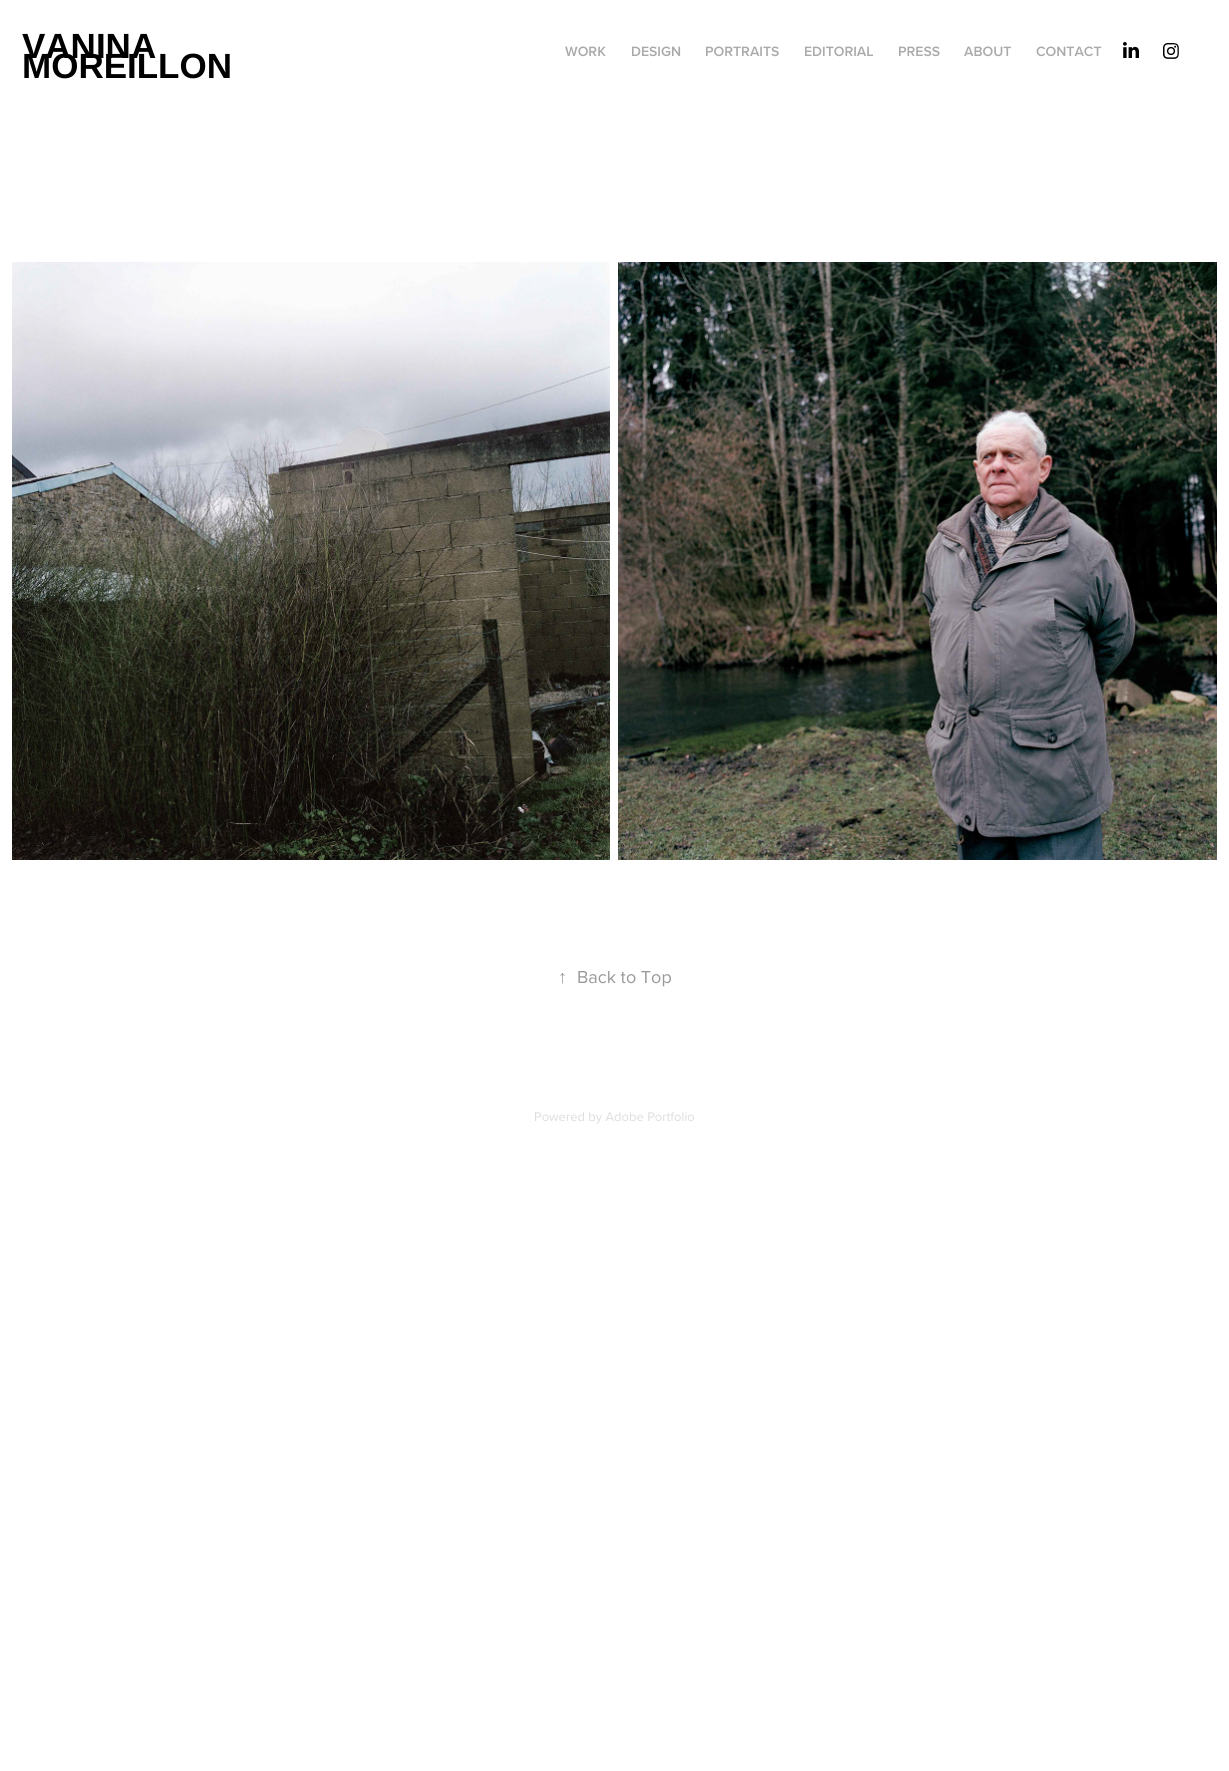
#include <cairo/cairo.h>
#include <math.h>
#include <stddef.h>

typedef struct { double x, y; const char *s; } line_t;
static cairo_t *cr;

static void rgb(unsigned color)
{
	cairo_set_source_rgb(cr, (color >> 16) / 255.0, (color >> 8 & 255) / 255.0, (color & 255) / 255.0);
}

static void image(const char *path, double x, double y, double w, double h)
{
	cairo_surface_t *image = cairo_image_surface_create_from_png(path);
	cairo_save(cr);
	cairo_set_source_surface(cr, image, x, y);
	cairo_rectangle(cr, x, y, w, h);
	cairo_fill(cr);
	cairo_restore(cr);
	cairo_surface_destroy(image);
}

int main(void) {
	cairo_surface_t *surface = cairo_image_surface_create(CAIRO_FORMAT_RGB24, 1229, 1771);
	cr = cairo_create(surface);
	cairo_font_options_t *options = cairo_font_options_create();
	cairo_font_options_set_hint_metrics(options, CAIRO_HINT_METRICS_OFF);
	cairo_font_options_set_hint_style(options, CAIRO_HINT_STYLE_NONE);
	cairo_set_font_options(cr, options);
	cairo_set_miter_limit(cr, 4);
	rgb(0xffffff);
	cairo_paint(cr);
	image("img/1.png", 1123, 42, 16, 16);
	image("img/2.png", 1163, 43, 16, 16);
	image("img/3.png", 12, 262, 598, 598);
	image("img/4.png", 618, 262, 599, 598);
	cairo_select_font_face(cr, "Liberation Sans", CAIRO_FONT_SLANT_NORMAL, CAIRO_FONT_WEIGHT_BOLD);
	cairo_set_font_size(cr, 35);
	rgb(0x000000);
	cairo_move_to(cr, 22, 58);
	cairo_show_text(cr, "VANINA");
	cairo_move_to(cr, 22, 78);
	cairo_show_text(cr, "MOREILLON");
	cairo_select_font_face(cr, "Proxima Nova SemiBold", CAIRO_FONT_SLANT_NORMAL, CAIRO_FONT_WEIGHT_NORMAL);
	cairo_set_font_size(cr, 14);
	rgb(0xaaaaaa);
	{
		static const line_t items[] = {
			{565, 56, "WORK"},
			{631, 56, "DESIGN"},
			{705, 56, "PORTRAITS"},
			{804, 56, "EDITORIAL"},
			{898, 56, "PRESS"},
			{964, 56, "ABOUT"},
			{1036, 56, "CONTACT"},
		};
		for (size_t i = 0; i < sizeof items / sizeof *items; i++) {
			cairo_move_to(cr, items[i].x, items[i].y);
			cairo_show_text(cr, items[i].s);
		}
	}
	cairo_select_font_face(cr, "Liberation Serif", CAIRO_FONT_SLANT_NORMAL, CAIRO_FONT_WEIGHT_NORMAL);
	cairo_set_font_size(cr, 18);
	rgb(0x999999);
	cairo_move_to(cr, 558, 983);
	cairo_show_text(cr, "↑");
	cairo_select_font_face(cr, "Proxima Nova", CAIRO_FONT_SLANT_NORMAL, CAIRO_FONT_WEIGHT_NORMAL);
	cairo_move_to(cr, 577, 983);
	cairo_show_text(cr, "Back to Top");
	cairo_set_font_size(cr, 13);
	rgb(0xdddddd);
	cairo_move_to(cr, 534, 1121);
	cairo_show_text(cr, "Powered by Adobe Portfolio");
	cairo_surface_write_to_png(surface, "page.png");
	cairo_font_options_destroy(options);
	cairo_destroy(cr);
	cairo_surface_destroy(surface);
	return 0;
}
